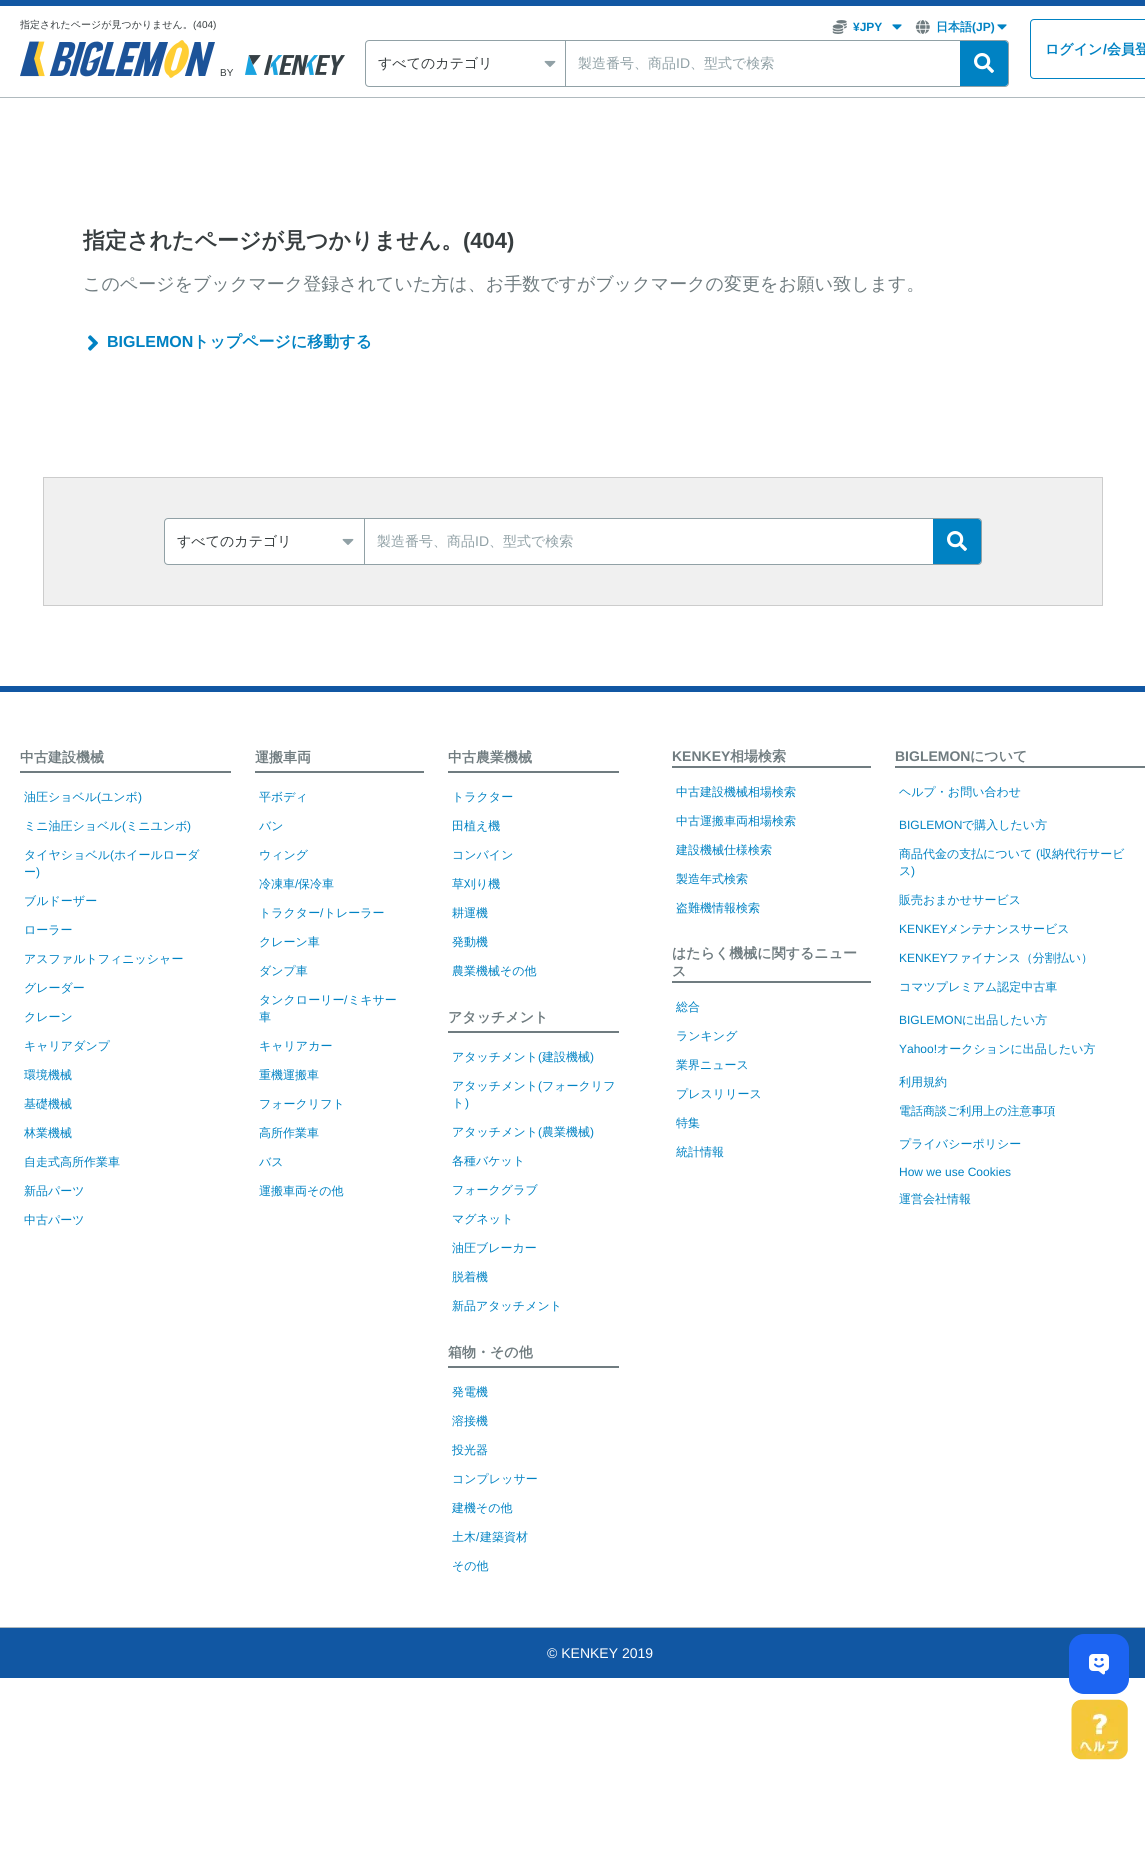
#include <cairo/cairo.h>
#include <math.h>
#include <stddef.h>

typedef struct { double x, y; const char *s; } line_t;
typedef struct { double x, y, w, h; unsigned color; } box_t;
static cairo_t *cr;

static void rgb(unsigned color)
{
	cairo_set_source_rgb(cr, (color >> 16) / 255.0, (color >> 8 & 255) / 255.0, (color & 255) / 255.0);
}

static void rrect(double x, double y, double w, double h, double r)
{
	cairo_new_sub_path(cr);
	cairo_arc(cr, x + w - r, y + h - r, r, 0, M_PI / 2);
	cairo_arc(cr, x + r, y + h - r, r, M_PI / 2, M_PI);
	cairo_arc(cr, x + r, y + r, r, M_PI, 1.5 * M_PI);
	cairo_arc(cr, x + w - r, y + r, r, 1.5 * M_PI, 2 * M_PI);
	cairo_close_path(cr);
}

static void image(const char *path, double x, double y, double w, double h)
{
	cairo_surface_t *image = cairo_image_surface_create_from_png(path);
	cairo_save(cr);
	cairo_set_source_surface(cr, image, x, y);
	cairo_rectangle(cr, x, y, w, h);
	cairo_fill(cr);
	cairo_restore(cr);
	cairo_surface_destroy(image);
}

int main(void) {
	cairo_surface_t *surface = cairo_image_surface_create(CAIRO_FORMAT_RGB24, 1145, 1859);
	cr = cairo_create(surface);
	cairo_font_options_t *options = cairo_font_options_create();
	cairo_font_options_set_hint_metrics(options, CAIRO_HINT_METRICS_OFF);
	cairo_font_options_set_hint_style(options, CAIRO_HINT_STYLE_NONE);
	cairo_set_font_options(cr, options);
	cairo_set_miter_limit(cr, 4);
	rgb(0xffffff);
	cairo_paint(cr);
	rgb(0x1157a3);
	cairo_rectangle(cr, 0, 0, 1145, 6);
	cairo_fill(cr);
	rgb(0xb0babe);
	cairo_rectangle(cr, 0, 97, 1145, 1);
	cairo_fill(cr);
	image("img/1.png", 832, 20, 15, 14);
	image("img/2.png", 892, 24, 10, 6);
	image("img/3.png", 915, 20, 15, 14);
	image("img/2.png", 997, 24, 10, 6);
	rrect(365.5, 40.5, 643, 46, 3.5);
	rgb(0x91a1a6);
	cairo_set_line_width(cr, 1);
	cairo_stroke(cr);
	cairo_rectangle(cr, 565, 41, 1, 45);
	cairo_fill(cr);
	image("img/4.png", 544, 60, 12, 7);
	rgb(0x0082c3);
	cairo_new_path(cr);
	cairo_move_to(cr, 960, 41);
	cairo_line_to(cr, 1005, 41);
	cairo_curve_to(cr, 1006.5, 41, 1008, 42.5, 1008, 44);
	cairo_line_to(cr, 1008, 83);
	cairo_curve_to(cr, 1008, 84.5, 1006.5, 86, 1005, 86);
	cairo_line_to(cr, 960, 86);
	cairo_close_path(cr);
	cairo_fill(cr);
	image("img/5.png", 974, 53, 20, 20);
	rrect(1030.5, 19.5, 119, 59, 3.5);
	cairo_stroke(cr);
	image("img/6.png", 20, 40, 195, 38);
	image("img/7.png", 245, 55, 100, 20);
	image("img/8.png", 88, 335, 10, 16);
	rgb(0xf0f0f0);
	cairo_rectangle(cr, 43.5, 477.5, 1059, 128);
	cairo_fill_preserve(cr);
	rgb(0xcccccc);
	cairo_stroke(cr);
	rgb(0xffffff);
	rrect(164.5, 518.5, 817, 46, 3.5);
	cairo_fill_preserve(cr);
	rgb(0x91a1a6);
	cairo_stroke(cr);
	cairo_rectangle(cr, 364, 519, 1, 45);
	cairo_fill(cr);
	image("img/4.png", 342, 538, 12, 7);
	rgb(0x0082c3);
	cairo_new_path(cr);
	cairo_move_to(cr, 933, 519);
	cairo_line_to(cr, 978, 519);
	cairo_curve_to(cr, 979.5, 519, 981, 520.5, 981, 522);
	cairo_line_to(cr, 981, 561);
	cairo_curve_to(cr, 981, 562.5, 979.5, 564, 978, 564);
	cairo_line_to(cr, 933, 564);
	cairo_close_path(cr);
	cairo_fill(cr);
	image("img/5.png", 947, 531, 20, 20);
	{
		static const box_t items[] = {
			{0, 686, 1145, 6, 0x1157a3},
			{0, 1627, 1145, 1, 0xb0babe},
			{20, 771, 211, 2, 0x707c80},
			{255, 771, 169, 2, 0x707c80},
			{448, 771, 171, 2, 0x707c80},
			{448, 1031, 171, 2, 0x707c80},
			{448, 1366, 171, 2, 0x707c80},
			{672, 766, 199, 2, 0x707c80},
			{672, 981, 199, 2, 0x707c80},
			{895, 766, 250, 2, 0x707c80},
			{0, 1628, 1145, 50, 0x1157a3},
		};
		for (size_t i = 0; i < sizeof items / sizeof *items; i++) {
			rgb(items[i].color);
			cairo_rectangle(cr, items[i].x, items[i].y, items[i].w, items[i].h);
			cairo_fill(cr);
		}
	}
	rgb(0x1c64f2);
	rrect(1069, 1634, 60, 60, 15);
	cairo_fill(cr);
	image("img/9.png", 1089, 1654, 20, 21);
	image("img/10.png", 1071, 1699, 57, 61);
	cairo_select_font_face(cr, "WenQuanYi Zen Hei Medium", CAIRO_FONT_SLANT_NORMAL, CAIRO_FONT_WEIGHT_NORMAL);
	cairo_set_font_size(cr, 10);
	rgb(0x373d3f);
	cairo_move_to(cr, 20, 28);
	cairo_show_text(cr, "指定されたページが見つかりません。");
	cairo_select_font_face(cr, "Liberation Sans", CAIRO_FONT_SLANT_NORMAL, CAIRO_FONT_WEIGHT_NORMAL);
	cairo_move_to(cr, 193, 28);
	cairo_show_text(cr, "(404)");
	cairo_select_font_face(cr, "Liberation Sans", CAIRO_FONT_SLANT_NORMAL, CAIRO_FONT_WEIGHT_BOLD);
	cairo_set_font_size(cr, 12);
	rgb(0x0082c3);
	cairo_move_to(cr, 853, 31);
	cairo_show_text(cr, "¥JPY");
	cairo_select_font_face(cr, "WenQuanYi Zen Hei", CAIRO_FONT_SLANT_NORMAL, CAIRO_FONT_WEIGHT_BOLD);
	cairo_move_to(cr, 936, 31);
	cairo_show_text(cr, "日本語");
	cairo_select_font_face(cr, "Liberation Sans", CAIRO_FONT_SLANT_NORMAL, CAIRO_FONT_WEIGHT_BOLD);
	cairo_move_to(cr, 972, 31);
	cairo_show_text(cr, "(JP)");
	cairo_select_font_face(cr, "WenQuanYi Zen Hei Medium", CAIRO_FONT_SLANT_NORMAL, CAIRO_FONT_WEIGHT_NORMAL);
	cairo_set_font_size(cr, 14);
	rgb(0x373d3f);
	cairo_move_to(cr, 378, 68);
	cairo_show_text(cr, "すべてのカテゴリ");
	rgb(0x91a1a6);
	cairo_move_to(cr, 578, 68);
	cairo_show_text(cr, "製造番号、商品");
	cairo_select_font_face(cr, "Liberation Sans", CAIRO_FONT_SLANT_NORMAL, CAIRO_FONT_WEIGHT_NORMAL);
	cairo_move_to(cr, 676, 68);
	cairo_show_text(cr, "ID");
	cairo_select_font_face(cr, "WenQuanYi Zen Hei Medium", CAIRO_FONT_SLANT_NORMAL, CAIRO_FONT_WEIGHT_NORMAL);
	cairo_move_to(cr, 690, 68);
	cairo_show_text(cr, "、型式で検索");
	cairo_select_font_face(cr, "WenQuanYi Zen Hei", CAIRO_FONT_SLANT_NORMAL, CAIRO_FONT_WEIGHT_BOLD);
	rgb(0x0082c3);
	cairo_move_to(cr, 1045, 54);
	cairo_show_text(cr, "ログイン");
	cairo_select_font_face(cr, "Liberation Sans", CAIRO_FONT_SLANT_NORMAL, CAIRO_FONT_WEIGHT_BOLD);
	cairo_move_to(cr, 1103, 54);
	cairo_show_text(cr, "/");
	cairo_select_font_face(cr, "WenQuanYi Zen Hei", CAIRO_FONT_SLANT_NORMAL, CAIRO_FONT_WEIGHT_BOLD);
	cairo_move_to(cr, 1107, 54);
	cairo_show_text(cr, "会員登");
	cairo_select_font_face(cr, "Liberation Sans", CAIRO_FONT_SLANT_NORMAL, CAIRO_FONT_WEIGHT_NORMAL);
	cairo_set_font_size(cr, 10);
	rgb(0x373d3f);
	cairo_move_to(cr, 220, 76);
	cairo_show_text(cr, "BY");
	cairo_select_font_face(cr, "WenQuanYi Zen Hei", CAIRO_FONT_SLANT_NORMAL, CAIRO_FONT_WEIGHT_BOLD);
	cairo_set_font_size(cr, 22);
	cairo_move_to(cr, 83, 248);
	cairo_show_text(cr, "指定されたページが見つかりません。");
	cairo_select_font_face(cr, "Liberation Sans", CAIRO_FONT_SLANT_NORMAL, CAIRO_FONT_WEIGHT_BOLD);
	cairo_move_to(cr, 463, 248);
	cairo_show_text(cr, "(404)");
	cairo_select_font_face(cr, "WenQuanYi Zen Hei Medium", CAIRO_FONT_SLANT_NORMAL, CAIRO_FONT_WEIGHT_NORMAL);
	cairo_set_font_size(cr, 18);
	rgb(0x707c80);
	cairo_move_to(cr, 83, 290);
	cairo_show_text(cr, "このページをブックマーク登録されていた方は、お手数ですがブックマークの変更をお願い致します。");
	cairo_select_font_face(cr, "Liberation Sans", CAIRO_FONT_SLANT_NORMAL, CAIRO_FONT_WEIGHT_BOLD);
	cairo_set_font_size(cr, 16);
	rgb(0x0082c3);
	cairo_move_to(cr, 107, 347);
	cairo_show_text(cr, "BIGLEMON");
	cairo_select_font_face(cr, "WenQuanYi Zen Hei", CAIRO_FONT_SLANT_NORMAL, CAIRO_FONT_WEIGHT_BOLD);
	cairo_move_to(cr, 193, 347);
	cairo_show_text(cr, "トップページに移動する");
	cairo_select_font_face(cr, "WenQuanYi Zen Hei Medium", CAIRO_FONT_SLANT_NORMAL, CAIRO_FONT_WEIGHT_NORMAL);
	cairo_set_font_size(cr, 14);
	rgb(0x373d3f);
	cairo_move_to(cr, 177, 546);
	cairo_show_text(cr, "すべてのカテゴリ");
	rgb(0x91a1a6);
	cairo_move_to(cr, 377, 546);
	cairo_show_text(cr, "製造番号、商品");
	cairo_select_font_face(cr, "Liberation Sans", CAIRO_FONT_SLANT_NORMAL, CAIRO_FONT_WEIGHT_NORMAL);
	cairo_move_to(cr, 475, 546);
	cairo_show_text(cr, "ID");
	cairo_select_font_face(cr, "WenQuanYi Zen Hei Medium", CAIRO_FONT_SLANT_NORMAL, CAIRO_FONT_WEIGHT_NORMAL);
	cairo_move_to(cr, 489, 546);
	cairo_show_text(cr, "、型式で検索");
	cairo_select_font_face(cr, "WenQuanYi Zen Hei", CAIRO_FONT_SLANT_NORMAL, CAIRO_FONT_WEIGHT_BOLD);
	rgb(0x707c80);
	cairo_move_to(cr, 20, 762);
	cairo_show_text(cr, "中古建設機械");
	cairo_select_font_face(cr, "WenQuanYi Zen Hei Medium", CAIRO_FONT_SLANT_NORMAL, CAIRO_FONT_WEIGHT_NORMAL);
	cairo_set_font_size(cr, 12);
	rgb(0x0082c3);
	cairo_move_to(cr, 24, 801);
	cairo_show_text(cr, "油圧ショベル");
	cairo_select_font_face(cr, "Liberation Sans", CAIRO_FONT_SLANT_NORMAL, CAIRO_FONT_WEIGHT_NORMAL);
	cairo_move_to(cr, 97, 801);
	cairo_show_text(cr, "(");
	cairo_select_font_face(cr, "WenQuanYi Zen Hei Medium", CAIRO_FONT_SLANT_NORMAL, CAIRO_FONT_WEIGHT_NORMAL);
	cairo_move_to(cr, 101, 801);
	cairo_show_text(cr, "ユンボ");
	cairo_select_font_face(cr, "Liberation Sans", CAIRO_FONT_SLANT_NORMAL, CAIRO_FONT_WEIGHT_NORMAL);
	cairo_move_to(cr, 138, 801);
	cairo_show_text(cr, ")");
	cairo_select_font_face(cr, "WenQuanYi Zen Hei Medium", CAIRO_FONT_SLANT_NORMAL, CAIRO_FONT_WEIGHT_NORMAL);
	cairo_move_to(cr, 24, 830);
	cairo_show_text(cr, "ミニ油圧ショベル");
	cairo_select_font_face(cr, "Liberation Sans", CAIRO_FONT_SLANT_NORMAL, CAIRO_FONT_WEIGHT_NORMAL);
	cairo_move_to(cr, 122, 830);
	cairo_show_text(cr, "(");
	cairo_select_font_face(cr, "WenQuanYi Zen Hei Medium", CAIRO_FONT_SLANT_NORMAL, CAIRO_FONT_WEIGHT_NORMAL);
	cairo_move_to(cr, 126, 830);
	cairo_show_text(cr, "ミニユンボ");
	cairo_select_font_face(cr, "Liberation Sans", CAIRO_FONT_SLANT_NORMAL, CAIRO_FONT_WEIGHT_NORMAL);
	cairo_move_to(cr, 187, 830);
	cairo_show_text(cr, ")");
	cairo_select_font_face(cr, "WenQuanYi Zen Hei Medium", CAIRO_FONT_SLANT_NORMAL, CAIRO_FONT_WEIGHT_NORMAL);
	cairo_move_to(cr, 24, 859);
	cairo_show_text(cr, "タイヤショベル");
	cairo_select_font_face(cr, "Liberation Sans", CAIRO_FONT_SLANT_NORMAL, CAIRO_FONT_WEIGHT_NORMAL);
	cairo_move_to(cr, 110, 859);
	cairo_show_text(cr, "(");
	cairo_select_font_face(cr, "WenQuanYi Zen Hei Medium", CAIRO_FONT_SLANT_NORMAL, CAIRO_FONT_WEIGHT_NORMAL);
	cairo_move_to(cr, 114, 859);
	cairo_show_text(cr, "ホイールローダ");
	cairo_move_to(cr, 24, 876);
	cairo_show_text(cr, "ー");
	cairo_select_font_face(cr, "Liberation Sans", CAIRO_FONT_SLANT_NORMAL, CAIRO_FONT_WEIGHT_NORMAL);
	cairo_move_to(cr, 36, 876);
	cairo_show_text(cr, ")");
	cairo_select_font_face(cr, "WenQuanYi Zen Hei Medium", CAIRO_FONT_SLANT_NORMAL, CAIRO_FONT_WEIGHT_NORMAL);
	{
		static const line_t items[] = {
			{24, 905, "ブルドーザー"},
			{24, 934, "ローラー"},
			{24, 963, "アスファルトフィニッシャー"},
			{24, 992, "グレーダー"},
			{24, 1021, "クレーン"},
			{24, 1050, "キャリアダンプ"},
			{24, 1079, "環境機械"},
			{24, 1108, "基礎機械"},
			{24, 1137, "林業機械"},
			{24, 1166, "自走式高所作業車"},
			{24, 1195, "新品パーツ"},
			{24, 1224, "中古パーツ"},
		};
		for (size_t i = 0; i < sizeof items / sizeof *items; i++) {
			cairo_move_to(cr, items[i].x, items[i].y);
			cairo_show_text(cr, items[i].s);
		}
	}
	cairo_select_font_face(cr, "WenQuanYi Zen Hei", CAIRO_FONT_SLANT_NORMAL, CAIRO_FONT_WEIGHT_BOLD);
	cairo_set_font_size(cr, 14);
	rgb(0x707c80);
	cairo_move_to(cr, 255, 762);
	cairo_show_text(cr, "運搬車両");
	cairo_select_font_face(cr, "WenQuanYi Zen Hei Medium", CAIRO_FONT_SLANT_NORMAL, CAIRO_FONT_WEIGHT_NORMAL);
	cairo_set_font_size(cr, 12);
	rgb(0x0082c3);
	{
		static const line_t items[] = {
			{259, 801, "平ボディ"},
			{259, 830, "バン"},
			{259, 859, "ウィング"},
			{259, 888, "冷凍車"},
		};
		for (size_t i = 0; i < sizeof items / sizeof *items; i++) {
			cairo_move_to(cr, items[i].x, items[i].y);
			cairo_show_text(cr, items[i].s);
		}
	}
	cairo_select_font_face(cr, "Liberation Sans", CAIRO_FONT_SLANT_NORMAL, CAIRO_FONT_WEIGHT_NORMAL);
	cairo_move_to(cr, 295, 888);
	cairo_show_text(cr, "/");
	cairo_select_font_face(cr, "WenQuanYi Zen Hei Medium", CAIRO_FONT_SLANT_NORMAL, CAIRO_FONT_WEIGHT_NORMAL);
	cairo_move_to(cr, 298, 888);
	cairo_show_text(cr, "保冷車");
	cairo_move_to(cr, 259, 917);
	cairo_show_text(cr, "トラクター トレーラー");
	cairo_select_font_face(cr, "Liberation Sans", CAIRO_FONT_SLANT_NORMAL, CAIRO_FONT_WEIGHT_NORMAL);
	cairo_move_to(cr, 320, 917);
	cairo_show_text(cr, "/");
	cairo_select_font_face(cr, "WenQuanYi Zen Hei Medium", CAIRO_FONT_SLANT_NORMAL, CAIRO_FONT_WEIGHT_NORMAL);
	{
		static const line_t items[] = {
			{259, 946, "クレーン車"},
			{259, 975, "ダンプ車"},
			{259, 1004, "タンクローリー ミキサー"},
		};
		for (size_t i = 0; i < sizeof items / sizeof *items; i++) {
			cairo_move_to(cr, items[i].x, items[i].y);
			cairo_show_text(cr, items[i].s);
		}
	}
	cairo_select_font_face(cr, "Liberation Sans", CAIRO_FONT_SLANT_NORMAL, CAIRO_FONT_WEIGHT_NORMAL);
	cairo_move_to(cr, 344, 1004);
	cairo_show_text(cr, "/");
	cairo_select_font_face(cr, "WenQuanYi Zen Hei Medium", CAIRO_FONT_SLANT_NORMAL, CAIRO_FONT_WEIGHT_NORMAL);
	{
		static const line_t items[] = {
			{259, 1021, "車"},
			{259, 1050, "キャリアカー"},
			{259, 1079, "重機運搬車"},
			{259, 1108, "フォークリフト"},
			{259, 1137, "高所作業車"},
			{259, 1166, "バス"},
			{259, 1195, "運搬車両その他"},
		};
		for (size_t i = 0; i < sizeof items / sizeof *items; i++) {
			cairo_move_to(cr, items[i].x, items[i].y);
			cairo_show_text(cr, items[i].s);
		}
	}
	cairo_select_font_face(cr, "WenQuanYi Zen Hei", CAIRO_FONT_SLANT_NORMAL, CAIRO_FONT_WEIGHT_BOLD);
	cairo_set_font_size(cr, 14);
	rgb(0x707c80);
	cairo_move_to(cr, 448, 762);
	cairo_show_text(cr, "中古農業機械");
	cairo_select_font_face(cr, "WenQuanYi Zen Hei Medium", CAIRO_FONT_SLANT_NORMAL, CAIRO_FONT_WEIGHT_NORMAL);
	cairo_set_font_size(cr, 12);
	rgb(0x0082c3);
	{
		static const line_t items[] = {
			{452, 801, "トラクター"},
			{452, 830, "田植え機"},
			{452, 859, "コンバイン"},
			{452, 888, "草刈り機"},
			{452, 917, "耕運機"},
			{452, 946, "発動機"},
			{452, 975, "農業機械その他"},
		};
		for (size_t i = 0; i < sizeof items / sizeof *items; i++) {
			cairo_move_to(cr, items[i].x, items[i].y);
			cairo_show_text(cr, items[i].s);
		}
	}
	cairo_select_font_face(cr, "WenQuanYi Zen Hei", CAIRO_FONT_SLANT_NORMAL, CAIRO_FONT_WEIGHT_BOLD);
	cairo_set_font_size(cr, 14);
	rgb(0x707c80);
	cairo_move_to(cr, 448, 1022);
	cairo_show_text(cr, "アタッチメント");
	cairo_select_font_face(cr, "WenQuanYi Zen Hei Medium", CAIRO_FONT_SLANT_NORMAL, CAIRO_FONT_WEIGHT_NORMAL);
	cairo_set_font_size(cr, 12);
	rgb(0x0082c3);
	cairo_move_to(cr, 452, 1061);
	cairo_show_text(cr, "アタッチメント");
	cairo_select_font_face(cr, "Liberation Sans", CAIRO_FONT_SLANT_NORMAL, CAIRO_FONT_WEIGHT_NORMAL);
	cairo_move_to(cr, 538, 1061);
	cairo_show_text(cr, "(");
	cairo_select_font_face(cr, "WenQuanYi Zen Hei Medium", CAIRO_FONT_SLANT_NORMAL, CAIRO_FONT_WEIGHT_NORMAL);
	cairo_move_to(cr, 542, 1061);
	cairo_show_text(cr, "建設機械");
	cairo_select_font_face(cr, "Liberation Sans", CAIRO_FONT_SLANT_NORMAL, CAIRO_FONT_WEIGHT_NORMAL);
	cairo_move_to(cr, 590, 1061);
	cairo_show_text(cr, ")");
	cairo_select_font_face(cr, "WenQuanYi Zen Hei Medium", CAIRO_FONT_SLANT_NORMAL, CAIRO_FONT_WEIGHT_NORMAL);
	cairo_move_to(cr, 452, 1090);
	cairo_show_text(cr, "アタッチメント");
	cairo_select_font_face(cr, "Liberation Sans", CAIRO_FONT_SLANT_NORMAL, CAIRO_FONT_WEIGHT_NORMAL);
	cairo_move_to(cr, 538, 1090);
	cairo_show_text(cr, "(");
	cairo_select_font_face(cr, "WenQuanYi Zen Hei Medium", CAIRO_FONT_SLANT_NORMAL, CAIRO_FONT_WEIGHT_NORMAL);
	cairo_move_to(cr, 542, 1090);
	cairo_show_text(cr, "フォークリフ");
	cairo_move_to(cr, 452, 1107);
	cairo_show_text(cr, "ト");
	cairo_select_font_face(cr, "Liberation Sans", CAIRO_FONT_SLANT_NORMAL, CAIRO_FONT_WEIGHT_NORMAL);
	cairo_move_to(cr, 465, 1107);
	cairo_show_text(cr, ")");
	cairo_select_font_face(cr, "WenQuanYi Zen Hei Medium", CAIRO_FONT_SLANT_NORMAL, CAIRO_FONT_WEIGHT_NORMAL);
	cairo_move_to(cr, 452, 1136);
	cairo_show_text(cr, "アタッチメント");
	cairo_select_font_face(cr, "Liberation Sans", CAIRO_FONT_SLANT_NORMAL, CAIRO_FONT_WEIGHT_NORMAL);
	cairo_move_to(cr, 538, 1136);
	cairo_show_text(cr, "(");
	cairo_select_font_face(cr, "WenQuanYi Zen Hei Medium", CAIRO_FONT_SLANT_NORMAL, CAIRO_FONT_WEIGHT_NORMAL);
	cairo_move_to(cr, 542, 1136);
	cairo_show_text(cr, "農業機械");
	cairo_select_font_face(cr, "Liberation Sans", CAIRO_FONT_SLANT_NORMAL, CAIRO_FONT_WEIGHT_NORMAL);
	cairo_move_to(cr, 590, 1136);
	cairo_show_text(cr, ")");
	cairo_select_font_face(cr, "WenQuanYi Zen Hei Medium", CAIRO_FONT_SLANT_NORMAL, CAIRO_FONT_WEIGHT_NORMAL);
	{
		static const line_t items[] = {
			{452, 1165, "各種バケット"},
			{452, 1194, "フォークグラブ"},
			{452, 1223, "マグネット"},
			{452, 1252, "油圧ブレーカー"},
			{452, 1281, "脱着機"},
			{452, 1310, "新品アタッチメント"},
		};
		for (size_t i = 0; i < sizeof items / sizeof *items; i++) {
			cairo_move_to(cr, items[i].x, items[i].y);
			cairo_show_text(cr, items[i].s);
		}
	}
	cairo_select_font_face(cr, "WenQuanYi Zen Hei", CAIRO_FONT_SLANT_NORMAL, CAIRO_FONT_WEIGHT_BOLD);
	cairo_set_font_size(cr, 14);
	rgb(0x707c80);
	cairo_move_to(cr, 448, 1357);
	cairo_show_text(cr, "箱物・その他");
	cairo_select_font_face(cr, "WenQuanYi Zen Hei Medium", CAIRO_FONT_SLANT_NORMAL, CAIRO_FONT_WEIGHT_NORMAL);
	cairo_set_font_size(cr, 12);
	rgb(0x0082c3);
	{
		static const line_t items[] = {
			{452, 1396, "発電機"},
			{452, 1425, "溶接機"},
			{452, 1454, "投光器"},
			{452, 1483, "コンプレッサー"},
			{452, 1512, "建機その他"},
			{452, 1541, "土木"},
		};
		for (size_t i = 0; i < sizeof items / sizeof *items; i++) {
			cairo_move_to(cr, items[i].x, items[i].y);
			cairo_show_text(cr, items[i].s);
		}
	}
	cairo_select_font_face(cr, "Liberation Sans", CAIRO_FONT_SLANT_NORMAL, CAIRO_FONT_WEIGHT_NORMAL);
	cairo_move_to(cr, 476, 1541);
	cairo_show_text(cr, "/");
	cairo_select_font_face(cr, "WenQuanYi Zen Hei Medium", CAIRO_FONT_SLANT_NORMAL, CAIRO_FONT_WEIGHT_NORMAL);
	cairo_move_to(cr, 480, 1541);
	cairo_show_text(cr, "建築資材");
	cairo_move_to(cr, 452, 1570);
	cairo_show_text(cr, "その他");
	cairo_select_font_face(cr, "Liberation Sans", CAIRO_FONT_SLANT_NORMAL, CAIRO_FONT_WEIGHT_BOLD);
	cairo_set_font_size(cr, 14);
	rgb(0x707c80);
	cairo_move_to(cr, 672, 761);
	cairo_show_text(cr, "KENKEY");
	cairo_select_font_face(cr, "WenQuanYi Zen Hei", CAIRO_FONT_SLANT_NORMAL, CAIRO_FONT_WEIGHT_BOLD);
	cairo_move_to(cr, 730, 761);
	cairo_show_text(cr, "相場検索");
	cairo_select_font_face(cr, "WenQuanYi Zen Hei Medium", CAIRO_FONT_SLANT_NORMAL, CAIRO_FONT_WEIGHT_NORMAL);
	cairo_set_font_size(cr, 12);
	rgb(0x0082c3);
	{
		static const line_t items[] = {
			{676, 796, "中古建設機械相場検索"},
			{676, 825, "中古運搬車両相場検索"},
			{676, 854, "建設機械仕様検索"},
			{676, 883, "製造年式検索"},
			{676, 912, "盗難機情報検索"},
		};
		for (size_t i = 0; i < sizeof items / sizeof *items; i++) {
			cairo_move_to(cr, items[i].x, items[i].y);
			cairo_show_text(cr, items[i].s);
		}
	}
	cairo_select_font_face(cr, "WenQuanYi Zen Hei", CAIRO_FONT_SLANT_NORMAL, CAIRO_FONT_WEIGHT_BOLD);
	cairo_set_font_size(cr, 14);
	rgb(0x707c80);
	cairo_move_to(cr, 672, 958);
	cairo_show_text(cr, "はたらく機械に関するニュー");
	cairo_move_to(cr, 672, 976);
	cairo_show_text(cr, "ス");
	cairo_select_font_face(cr, "WenQuanYi Zen Hei Medium", CAIRO_FONT_SLANT_NORMAL, CAIRO_FONT_WEIGHT_NORMAL);
	cairo_set_font_size(cr, 12);
	rgb(0x0082c3);
	{
		static const line_t items[] = {
			{676, 1011, "総合"},
			{676, 1040, "ランキング"},
			{676, 1069, "業界ニュース"},
			{676, 1098, "プレスリリース"},
			{676, 1127, "特集"},
			{676, 1156, "統計情報"},
		};
		for (size_t i = 0; i < sizeof items / sizeof *items; i++) {
			cairo_move_to(cr, items[i].x, items[i].y);
			cairo_show_text(cr, items[i].s);
		}
	}
	cairo_select_font_face(cr, "Liberation Sans", CAIRO_FONT_SLANT_NORMAL, CAIRO_FONT_WEIGHT_BOLD);
	cairo_set_font_size(cr, 14);
	rgb(0x707c80);
	cairo_move_to(cr, 895, 761);
	cairo_show_text(cr, "BIGLEMON");
	cairo_select_font_face(cr, "WenQuanYi Zen Hei", CAIRO_FONT_SLANT_NORMAL, CAIRO_FONT_WEIGHT_BOLD);
	cairo_move_to(cr, 970, 761);
	cairo_show_text(cr, "について");
	cairo_select_font_face(cr, "WenQuanYi Zen Hei Medium", CAIRO_FONT_SLANT_NORMAL, CAIRO_FONT_WEIGHT_NORMAL);
	cairo_set_font_size(cr, 12);
	rgb(0x0082c3);
	cairo_move_to(cr, 899, 796);
	cairo_show_text(cr, "ヘルプ・お問い合わせ");
	cairo_select_font_face(cr, "Liberation Sans", CAIRO_FONT_SLANT_NORMAL, CAIRO_FONT_WEIGHT_NORMAL);
	cairo_move_to(cr, 899, 829);
	cairo_show_text(cr, "BIGLEMON");
	cairo_select_font_face(cr, "WenQuanYi Zen Hei Medium", CAIRO_FONT_SLANT_NORMAL, CAIRO_FONT_WEIGHT_NORMAL);
	cairo_move_to(cr, 962, 829);
	cairo_show_text(cr, "で購入したい方");
	cairo_move_to(cr, 899, 858);
	cairo_show_text(cr, "商品代金の支払について");
	cairo_select_font_face(cr, "Liberation Sans", CAIRO_FONT_SLANT_NORMAL, CAIRO_FONT_WEIGHT_NORMAL);
	cairo_move_to(cr, 1036, 858);
	cairo_show_text(cr, "(");
	cairo_select_font_face(cr, "WenQuanYi Zen Hei Medium", CAIRO_FONT_SLANT_NORMAL, CAIRO_FONT_WEIGHT_NORMAL);
	cairo_move_to(cr, 1040, 858);
	cairo_show_text(cr, "収納代行サービ");
	cairo_move_to(cr, 899, 875);
	cairo_show_text(cr, "ス");
	cairo_select_font_face(cr, "Liberation Sans", CAIRO_FONT_SLANT_NORMAL, CAIRO_FONT_WEIGHT_NORMAL);
	cairo_move_to(cr, 911, 875);
	cairo_show_text(cr, ")");
	cairo_select_font_face(cr, "WenQuanYi Zen Hei Medium", CAIRO_FONT_SLANT_NORMAL, CAIRO_FONT_WEIGHT_NORMAL);
	cairo_move_to(cr, 899, 904);
	cairo_show_text(cr, "販売おまかせサービス");
	cairo_select_font_face(cr, "Liberation Sans", CAIRO_FONT_SLANT_NORMAL, CAIRO_FONT_WEIGHT_NORMAL);
	cairo_move_to(cr, 899, 933);
	cairo_show_text(cr, "KENKEY");
	cairo_select_font_face(cr, "WenQuanYi Zen Hei Medium", CAIRO_FONT_SLANT_NORMAL, CAIRO_FONT_WEIGHT_NORMAL);
	cairo_move_to(cr, 947, 933);
	cairo_show_text(cr, "メンテナンスサービス");
	cairo_select_font_face(cr, "Liberation Sans", CAIRO_FONT_SLANT_NORMAL, CAIRO_FONT_WEIGHT_NORMAL);
	cairo_move_to(cr, 899, 962);
	cairo_show_text(cr, "KENKEY");
	cairo_select_font_face(cr, "WenQuanYi Zen Hei Medium", CAIRO_FONT_SLANT_NORMAL, CAIRO_FONT_WEIGHT_NORMAL);
	cairo_move_to(cr, 947, 962);
	cairo_show_text(cr, "ファイナンス（分割払い）");
	cairo_move_to(cr, 899, 991);
	cairo_show_text(cr, "コマツプレミアム認定中古車");
	cairo_select_font_face(cr, "Liberation Sans", CAIRO_FONT_SLANT_NORMAL, CAIRO_FONT_WEIGHT_NORMAL);
	cairo_move_to(cr, 899, 1024);
	cairo_show_text(cr, "BIGLEMON");
	cairo_select_font_face(cr, "WenQuanYi Zen Hei Medium", CAIRO_FONT_SLANT_NORMAL, CAIRO_FONT_WEIGHT_NORMAL);
	cairo_move_to(cr, 962, 1024);
	cairo_show_text(cr, "に出品したい方");
	cairo_select_font_face(cr, "Liberation Sans", CAIRO_FONT_SLANT_NORMAL, CAIRO_FONT_WEIGHT_NORMAL);
	cairo_move_to(cr, 899, 1053);
	cairo_show_text(cr, "Yahoo!");
	cairo_select_font_face(cr, "WenQuanYi Zen Hei Medium", CAIRO_FONT_SLANT_NORMAL, CAIRO_FONT_WEIGHT_NORMAL);
	{
		static const line_t items[] = {
			{937, 1053, "オークションに出品したい方"},
			{899, 1086, "利用規約"},
			{899, 1115, "電話商談ご利用上の注意事項"},
			{899, 1148, "プライバシーポリシー"},
		};
		for (size_t i = 0; i < sizeof items / sizeof *items; i++) {
			cairo_move_to(cr, items[i].x, items[i].y);
			cairo_show_text(cr, items[i].s);
		}
	}
	cairo_select_font_face(cr, "Liberation Sans", CAIRO_FONT_SLANT_NORMAL, CAIRO_FONT_WEIGHT_NORMAL);
	cairo_move_to(cr, 899, 1176);
	cairo_show_text(cr, "How we use Cookies");
	cairo_select_font_face(cr, "WenQuanYi Zen Hei Medium", CAIRO_FONT_SLANT_NORMAL, CAIRO_FONT_WEIGHT_NORMAL);
	cairo_move_to(cr, 899, 1203);
	cairo_show_text(cr, "運営会社情報");
	cairo_select_font_face(cr, "Liberation Sans", CAIRO_FONT_SLANT_NORMAL, CAIRO_FONT_WEIGHT_NORMAL);
	cairo_set_font_size(cr, 14);
	rgb(0xffffff);
	cairo_move_to(cr, 547, 1658);
	cairo_show_text(cr, "© KENKEY 2019");
	cairo_surface_write_to_png(surface, "page.png");
	cairo_font_options_destroy(options);
	cairo_destroy(cr);
	cairo_surface_destroy(surface);
	return 0;
}
